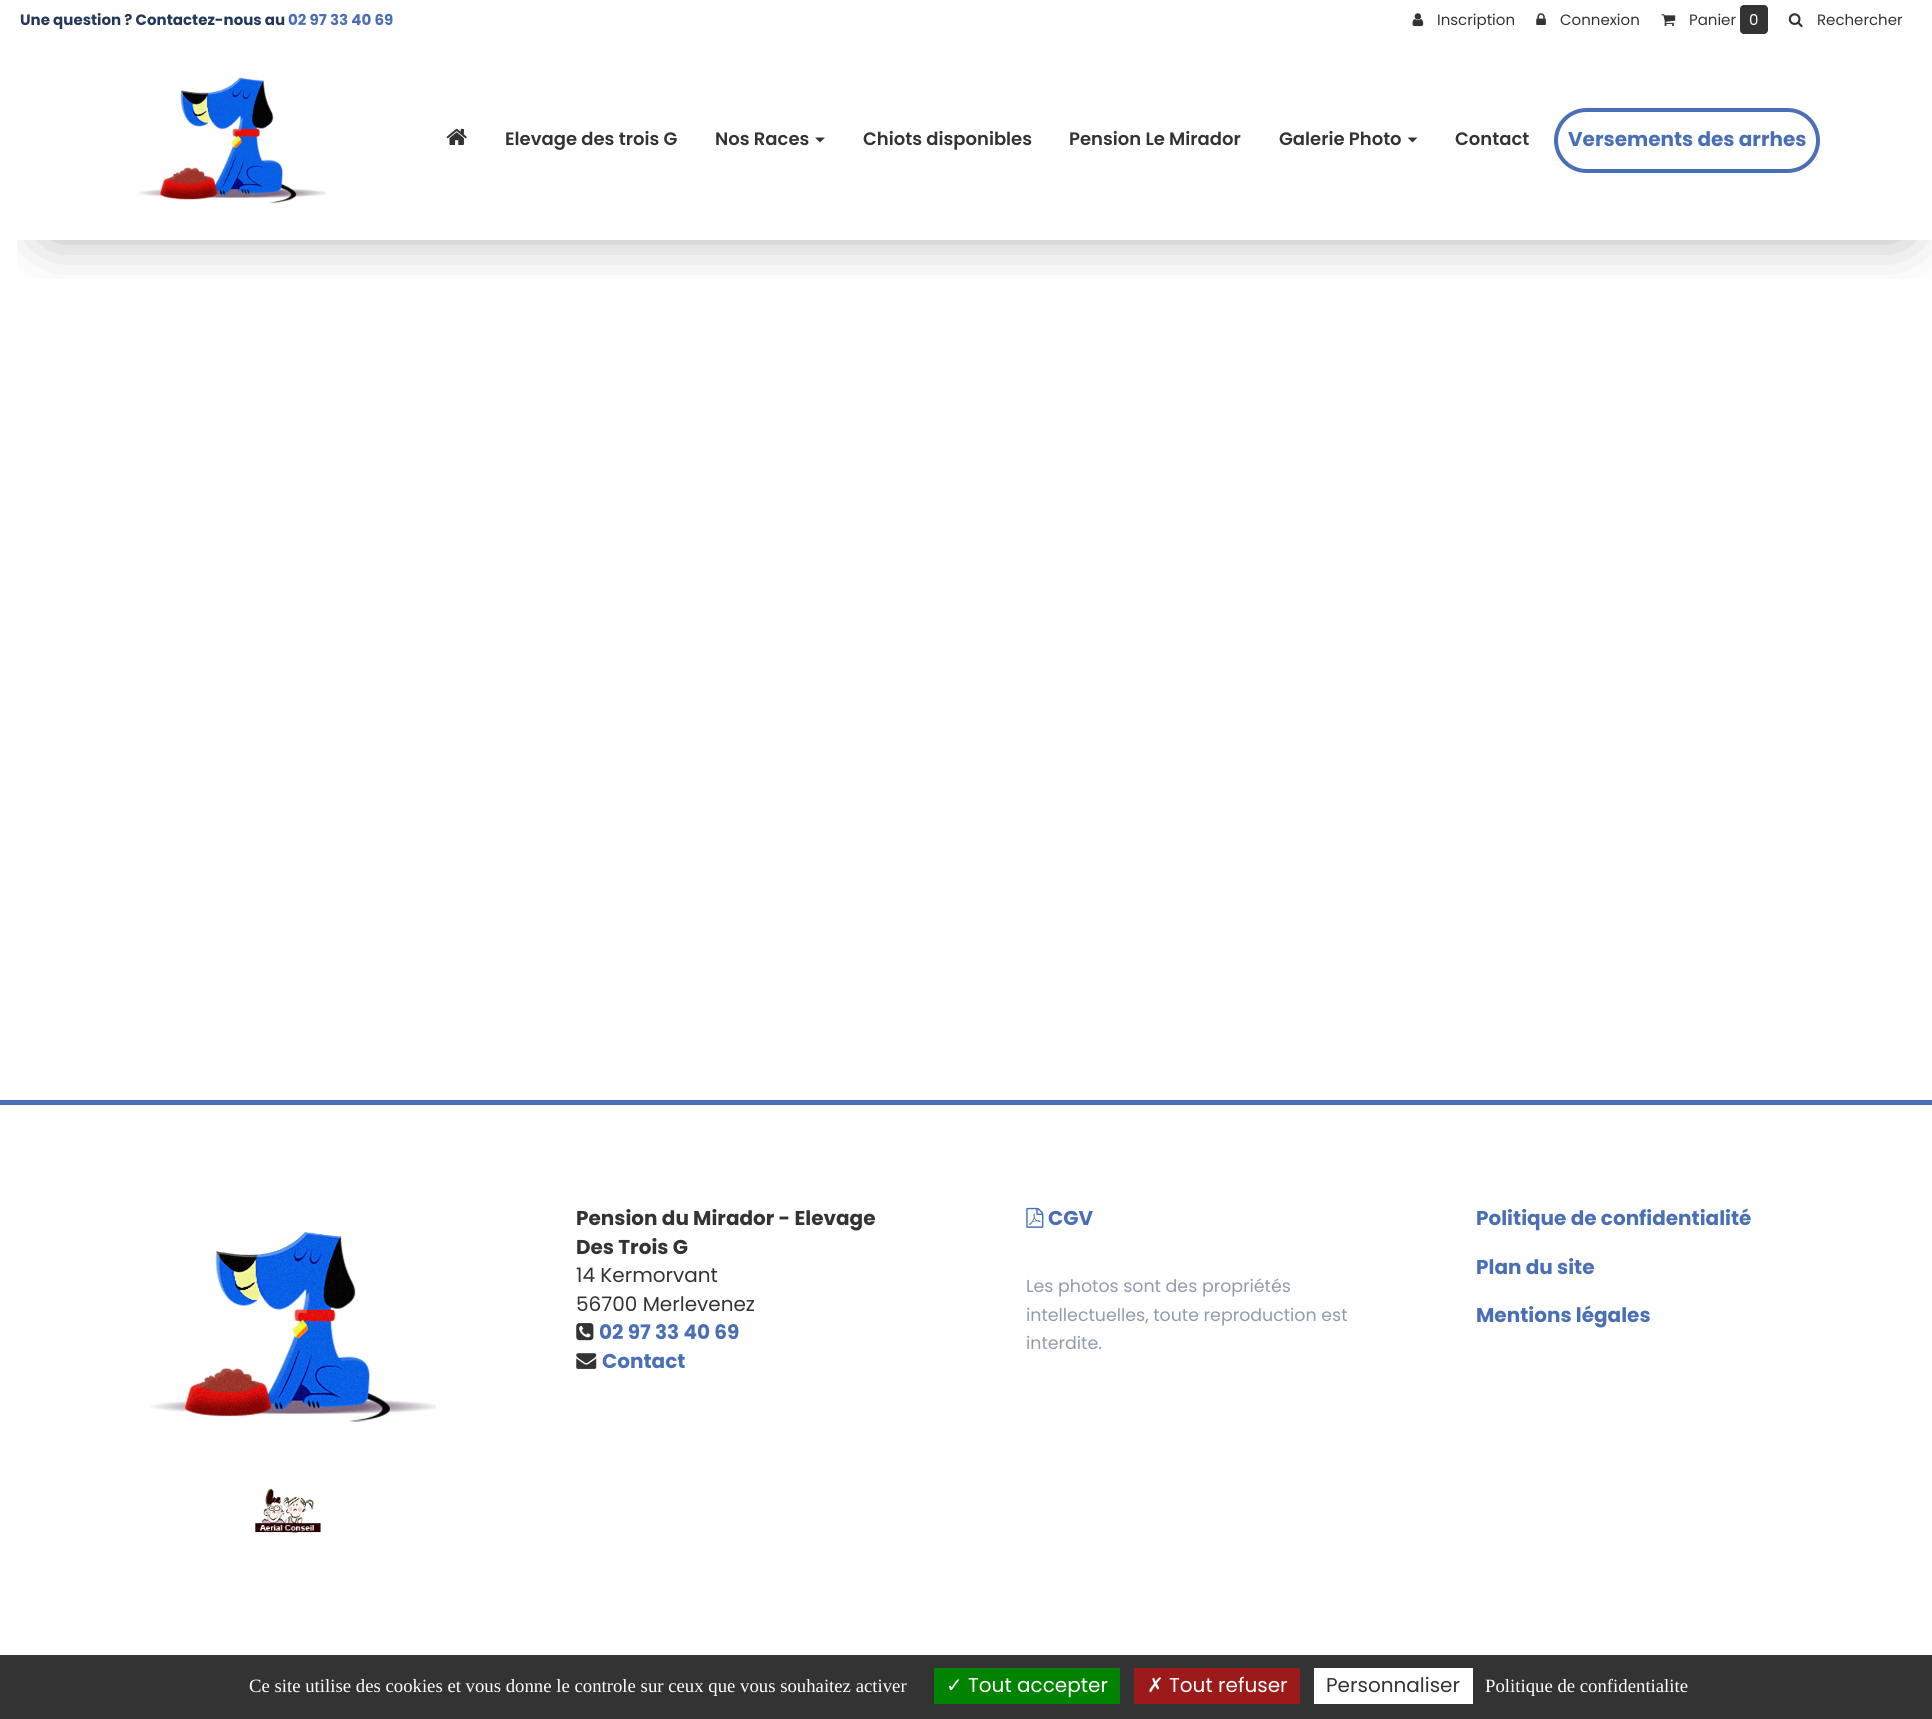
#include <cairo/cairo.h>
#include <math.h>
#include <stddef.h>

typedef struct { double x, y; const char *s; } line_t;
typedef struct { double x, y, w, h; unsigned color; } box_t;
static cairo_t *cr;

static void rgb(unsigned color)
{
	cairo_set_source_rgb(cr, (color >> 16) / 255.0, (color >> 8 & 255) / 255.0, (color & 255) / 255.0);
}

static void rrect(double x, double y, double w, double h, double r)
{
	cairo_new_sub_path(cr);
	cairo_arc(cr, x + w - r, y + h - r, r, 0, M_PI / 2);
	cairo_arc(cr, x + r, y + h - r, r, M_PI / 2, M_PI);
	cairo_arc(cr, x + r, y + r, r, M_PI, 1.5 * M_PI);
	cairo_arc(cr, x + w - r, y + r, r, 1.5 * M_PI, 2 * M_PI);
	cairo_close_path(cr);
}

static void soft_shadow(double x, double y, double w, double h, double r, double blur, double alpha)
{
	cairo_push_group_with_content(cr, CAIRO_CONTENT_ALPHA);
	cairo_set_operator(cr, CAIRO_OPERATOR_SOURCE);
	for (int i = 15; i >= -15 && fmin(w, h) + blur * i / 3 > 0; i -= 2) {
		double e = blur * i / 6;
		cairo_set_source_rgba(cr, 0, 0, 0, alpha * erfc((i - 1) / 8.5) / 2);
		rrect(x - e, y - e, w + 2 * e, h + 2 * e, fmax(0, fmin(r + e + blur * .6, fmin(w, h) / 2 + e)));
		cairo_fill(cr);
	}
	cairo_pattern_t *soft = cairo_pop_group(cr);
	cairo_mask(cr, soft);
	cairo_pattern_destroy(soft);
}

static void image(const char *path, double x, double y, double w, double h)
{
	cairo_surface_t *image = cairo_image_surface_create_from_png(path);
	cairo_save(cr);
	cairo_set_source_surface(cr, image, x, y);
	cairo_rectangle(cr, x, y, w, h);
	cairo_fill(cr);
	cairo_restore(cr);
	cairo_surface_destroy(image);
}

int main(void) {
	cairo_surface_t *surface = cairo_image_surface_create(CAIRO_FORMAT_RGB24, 1932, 1719);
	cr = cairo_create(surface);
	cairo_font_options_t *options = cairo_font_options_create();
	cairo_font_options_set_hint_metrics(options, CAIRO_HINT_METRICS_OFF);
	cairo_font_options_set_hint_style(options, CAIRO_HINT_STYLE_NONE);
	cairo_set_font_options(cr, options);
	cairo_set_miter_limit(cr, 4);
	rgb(0xffffff);
	cairo_paint(cr);
	cairo_save(cr);
	cairo_rectangle(cr, 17, 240, 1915, 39);
	cairo_clip(cr);
	rgb(0x000000);
	soft_shadow(50, 70, 1853, 160, 0, 30, 0.4);
	cairo_restore(cr);
	image("img/1.png", 1412, 13, 12, 14);
	image("img/2.png", 1536, 13, 10, 12);
	image("img/3.png", 1661, 14, 15, 13);
	rgb(0x333333);
	rrect(1740, 5, 28, 29, 4);
	cairo_fill(cr);
	image("img/4.png", 1788, 13, 15, 15);
	image("img/5.png", 138, 77, 188, 127);
	image("img/6.png", 446, 128, 21, 17);
	cairo_new_path(cr);
	cairo_move_to(cr, 815, 137.5);
	cairo_line_to(cr, 825, 137.5);
	cairo_line_to(cr, 820, 142.5);
	cairo_close_path(cr);
	cairo_fill(cr);
	cairo_new_path(cr);
	cairo_move_to(cr, 1407.5, 137.5);
	cairo_line_to(cr, 1417.5, 137.5);
	cairo_line_to(cr, 1412.5, 142.5);
	cairo_close_path(cr);
	cairo_fill(cr);
	rrect(1556, 110, 262, 61, 30.5);
	rgb(0x4a6fb4);
	cairo_set_line_width(cr, 4);
	cairo_stroke(cr);
	cairo_rectangle(cr, 0, 1100, 1932, 5);
	cairo_fill(cr);
	image("img/7.png", 150, 1232, 286, 190);
	image("img/8.png", 255, 1488, 66, 45);
	image("img/9.png", 576, 1323, 18, 18);
	image("img/10.png", 576, 1353, 21, 16);
	image("img/11.png", 1026, 1207, 18, 21);
	{
		static const box_t items[] = {
			{0, 1655, 1932, 64, 0x333333},
			{934, 1668, 186, 36, 0x008300},
			{1134, 1668, 166, 36, 0x9c1a1a},
			{1314, 1668, 159, 36, 0xffffff},
		};
		for (size_t i = 0; i < sizeof items / sizeof *items; i++) {
			rgb(items[i].color);
			cairo_rectangle(cr, items[i].x, items[i].y, items[i].w, items[i].h);
			cairo_fill(cr);
		}
	}
	cairo_select_font_face(cr, "Poppins", CAIRO_FONT_SLANT_NORMAL, CAIRO_FONT_WEIGHT_BOLD);
	cairo_set_font_size(cr, 15);
	rgb(0x25375a);
	cairo_move_to(cr, 20, 25);
	cairo_show_text(cr, "Une question ? Contactez-nous au");
	rgb(0x4a6fb4);
	cairo_move_to(cr, 288, 25);
	cairo_show_text(cr, "02 97 33 40 69");
	cairo_select_font_face(cr, "Poppins", CAIRO_FONT_SLANT_NORMAL, CAIRO_FONT_WEIGHT_NORMAL);
	rgb(0x333333);
	{
		static const line_t items[] = {
			{1437, 25, "Inscription"},
			{1560, 25, "Connexion"},
			{1689, 25, "Panier"},
		};
		for (size_t i = 0; i < sizeof items / sizeof *items; i++) {
			cairo_move_to(cr, items[i].x, items[i].y);
			cairo_show_text(cr, items[i].s);
		}
	}
	rgb(0xffffff);
	cairo_move_to(cr, 1749, 25);
	cairo_show_text(cr, "0");
	rgb(0x333333);
	cairo_move_to(cr, 1817, 25);
	cairo_show_text(cr, "Rechercher");
	cairo_select_font_face(cr, "Poppins SemiBold", CAIRO_FONT_SLANT_NORMAL, CAIRO_FONT_WEIGHT_NORMAL);
	cairo_set_font_size(cr, 18);
	{
		static const line_t items[] = {
			{505, 145, "Elevage des trois G"},
			{715, 145, "Nos Races"},
			{863, 145, "Chiots disponibles"},
			{1069, 145, "Pension Le Mirador"},
			{1279, 145, "Galerie Photo"},
			{1455, 145, "Contact"},
		};
		for (size_t i = 0; i < sizeof items / sizeof *items; i++) {
			cairo_move_to(cr, items[i].x, items[i].y);
			cairo_show_text(cr, items[i].s);
		}
	}
	cairo_select_font_face(cr, "Poppins", CAIRO_FONT_SLANT_NORMAL, CAIRO_FONT_WEIGHT_BOLD);
	cairo_set_font_size(cr, 20);
	rgb(0x4a6fb4);
	cairo_move_to(cr, 1568, 146);
	cairo_show_text(cr, "Versements des arrhes");
	rgb(0x333333);
	cairo_move_to(cr, 576, 1225);
	cairo_show_text(cr, "Pension du Mirador - Elevage");
	cairo_move_to(cr, 576, 1254);
	cairo_show_text(cr, "Des Trois G");
	cairo_select_font_face(cr, "Poppins", CAIRO_FONT_SLANT_NORMAL, CAIRO_FONT_WEIGHT_NORMAL);
	cairo_move_to(cr, 576, 1282);
	cairo_show_text(cr, "14 Kermorvant");
	cairo_move_to(cr, 576, 1311);
	cairo_show_text(cr, "56700 Merlevenez");
	cairo_select_font_face(cr, "Poppins", CAIRO_FONT_SLANT_NORMAL, CAIRO_FONT_WEIGHT_BOLD);
	rgb(0x4a6fb4);
	{
		static const line_t items[] = {
			{599, 1339, "02 97 33 40 69"},
			{602, 1368, "Contact"},
			{1048, 1225, "CGV"},
		};
		for (size_t i = 0; i < sizeof items / sizeof *items; i++) {
			cairo_move_to(cr, items[i].x, items[i].y);
			cairo_show_text(cr, items[i].s);
		}
	}
	cairo_select_font_face(cr, "Poppins", CAIRO_FONT_SLANT_NORMAL, CAIRO_FONT_WEIGHT_NORMAL);
	cairo_set_font_size(cr, 17.4);
	rgb(0x929bad);
	{
		static const line_t items[] = {
			{1026, 1292, "Les photos sont des propriétés"},
			{1026, 1321, "intellectuelles, toute reproduction est"},
			{1026, 1349, "interdite."},
		};
		for (size_t i = 0; i < sizeof items / sizeof *items; i++) {
			cairo_move_to(cr, items[i].x, items[i].y);
			cairo_show_text(cr, items[i].s);
		}
	}
	cairo_select_font_face(cr, "Poppins", CAIRO_FONT_SLANT_NORMAL, CAIRO_FONT_WEIGHT_BOLD);
	cairo_set_font_size(cr, 20);
	rgb(0x4a6fb4);
	{
		static const line_t items[] = {
			{1476, 1225, "Politique de confidentialité"},
			{1476, 1274, "Plan du site"},
			{1476, 1322, "Mentions légales"},
		};
		for (size_t i = 0; i < sizeof items / sizeof *items; i++) {
			cairo_move_to(cr, items[i].x, items[i].y);
			cairo_show_text(cr, items[i].s);
		}
	}
	cairo_select_font_face(cr, "Liberation Serif", CAIRO_FONT_SLANT_NORMAL, CAIRO_FONT_WEIGHT_NORMAL);
	cairo_set_font_size(cr, 18.75);
	rgb(0xffffff);
	cairo_move_to(cr, 249, 1692);
	cairo_show_text(cr, "Ce site utilise des cookies et vous donne le controle sur ceux que vous souhaitez activer");
	cairo_select_font_face(cr, "DejaVu Sans", CAIRO_FONT_SLANT_NORMAL, CAIRO_FONT_WEIGHT_NORMAL);
	cairo_set_font_size(cr, 20);
	cairo_move_to(cr, 946, 1692);
	cairo_show_text(cr, "✓");
	cairo_select_font_face(cr, "Poppins", CAIRO_FONT_SLANT_NORMAL, CAIRO_FONT_WEIGHT_NORMAL);
	cairo_move_to(cr, 968, 1692);
	cairo_show_text(cr, "Tout accepter");
	cairo_select_font_face(cr, "DejaVu Sans", CAIRO_FONT_SLANT_NORMAL, CAIRO_FONT_WEIGHT_NORMAL);
	cairo_move_to(cr, 1147, 1692);
	cairo_show_text(cr, "✗");
	cairo_select_font_face(cr, "Poppins", CAIRO_FONT_SLANT_NORMAL, CAIRO_FONT_WEIGHT_NORMAL);
	cairo_move_to(cr, 1169, 1692);
	cairo_show_text(cr, "Tout refuser");
	rgb(0x333333);
	cairo_move_to(cr, 1326, 1692);
	cairo_show_text(cr, "Personnaliser");
	cairo_select_font_face(cr, "Liberation Serif", CAIRO_FONT_SLANT_NORMAL, CAIRO_FONT_WEIGHT_NORMAL);
	cairo_set_font_size(cr, 18.75);
	rgb(0xffffff);
	cairo_move_to(cr, 1485, 1692);
	cairo_show_text(cr, "Politique de confidentialite");
	cairo_surface_write_to_png(surface, "page.png");
	cairo_font_options_destroy(options);
	cairo_destroy(cr);
	cairo_surface_destroy(surface);
	return 0;
}
